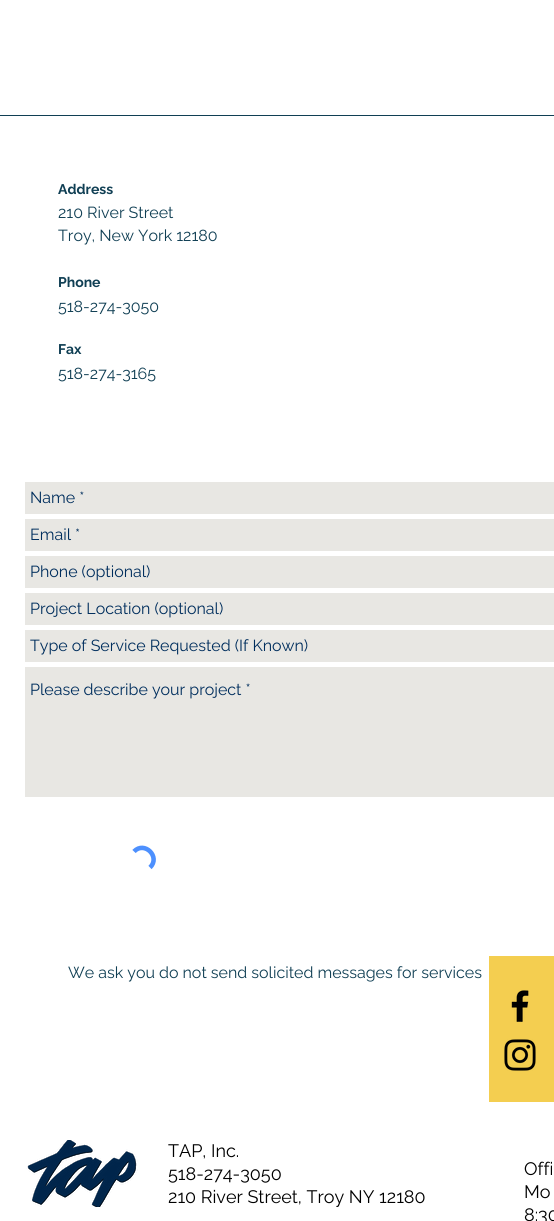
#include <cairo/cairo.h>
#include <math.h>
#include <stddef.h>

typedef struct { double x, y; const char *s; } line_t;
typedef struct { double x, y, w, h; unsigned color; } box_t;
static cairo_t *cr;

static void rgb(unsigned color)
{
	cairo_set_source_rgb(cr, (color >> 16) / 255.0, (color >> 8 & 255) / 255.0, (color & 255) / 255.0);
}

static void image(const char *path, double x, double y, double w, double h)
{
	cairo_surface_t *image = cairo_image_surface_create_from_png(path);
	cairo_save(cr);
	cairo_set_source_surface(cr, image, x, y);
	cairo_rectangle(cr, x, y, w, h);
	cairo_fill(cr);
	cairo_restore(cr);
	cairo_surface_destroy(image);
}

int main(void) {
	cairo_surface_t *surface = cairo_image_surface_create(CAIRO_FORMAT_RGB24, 554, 1221);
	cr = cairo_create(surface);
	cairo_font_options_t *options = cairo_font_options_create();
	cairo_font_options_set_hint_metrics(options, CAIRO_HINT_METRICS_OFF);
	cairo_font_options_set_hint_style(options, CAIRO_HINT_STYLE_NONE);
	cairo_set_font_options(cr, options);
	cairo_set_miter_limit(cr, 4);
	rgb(0xffffff);
	cairo_paint(cr);
	{
		static const box_t items[] = {
			{0, 115, 554, 1, 0x103f54},
			{25, 482, 529, 32, 0xe8e7e3},
			{25, 519, 529, 32, 0xe8e7e3},
			{25, 556, 529, 32, 0xe8e7e3},
			{25, 593, 529, 32, 0xe8e7e3},
			{25, 630, 529, 32, 0xe8e7e3},
			{25, 667, 529, 130, 0xe8e7e3},
		};
		for (size_t i = 0; i < sizeof items / sizeof *items; i++) {
			rgb(items[i].color);
			cairo_rectangle(cr, items[i].x, items[i].y, items[i].w, items[i].h);
			cairo_fill(cr);
		}
	}
	cairo_new_path(cr);
	cairo_move_to(cr, 134, 851.5);
	cairo_curve_to(cr, 144.5, 840.5, 161, 857, 150, 867.5);
	rgb(0x4d90fe);
	cairo_set_line_width(cr, 4.6);
	cairo_stroke(cr);
	rgb(0xf4ce50);
	cairo_rectangle(cr, 489, 956, 65, 146);
	cairo_fill(cr);
	image("img/1.png", 511, 990, 18, 32);
	image("img/2.png", 504, 1039, 32, 32);
	image("img/3.png", 26, 1140, 112, 67);
	cairo_select_font_face(cr, "Raleway", CAIRO_FONT_SLANT_NORMAL, CAIRO_FONT_WEIGHT_BOLD);
	cairo_set_font_size(cr, 14);
	rgb(0x103f54);
	cairo_move_to(cr, 58, 194);
	cairo_show_text(cr, "Address");
	cairo_select_font_face(cr, "Raleway", CAIRO_FONT_SLANT_NORMAL, CAIRO_FONT_WEIGHT_NORMAL);
	cairo_set_font_size(cr, 16);
	cairo_move_to(cr, 58, 218);
	cairo_show_text(cr, "210 River Street");
	cairo_move_to(cr, 58, 241);
	cairo_show_text(cr, "Troy, New York 12180");
	cairo_select_font_face(cr, "Raleway", CAIRO_FONT_SLANT_NORMAL, CAIRO_FONT_WEIGHT_BOLD);
	cairo_set_font_size(cr, 14);
	cairo_move_to(cr, 58, 287);
	cairo_show_text(cr, "Phone");
	cairo_select_font_face(cr, "Raleway", CAIRO_FONT_SLANT_NORMAL, CAIRO_FONT_WEIGHT_NORMAL);
	cairo_set_font_size(cr, 16);
	cairo_move_to(cr, 58, 312);
	cairo_show_text(cr, "518-274-3050");
	cairo_select_font_face(cr, "Raleway", CAIRO_FONT_SLANT_NORMAL, CAIRO_FONT_WEIGHT_BOLD);
	cairo_set_font_size(cr, 14);
	cairo_move_to(cr, 58, 354);
	cairo_show_text(cr, "Fax");
	cairo_select_font_face(cr, "Raleway", CAIRO_FONT_SLANT_NORMAL, CAIRO_FONT_WEIGHT_NORMAL);
	cairo_set_font_size(cr, 16);
	cairo_move_to(cr, 58, 379);
	cairo_show_text(cr, "518-274-3165");
	rgb(0x002e5d);
	{
		static const line_t items[] = {
			{30, 503, "Name *"},
			{30, 540, "Email *"},
			{30, 577, "Phone (optional)"},
			{30, 614, "Project Location (optional)"},
			{30, 651, "Type of Service Requested (If Known)"},
			{30, 695, "Please describe your project *"},
		};
		for (size_t i = 0; i < sizeof items / sizeof *items; i++) {
			cairo_move_to(cr, items[i].x, items[i].y);
			cairo_show_text(cr, items[i].s);
		}
	}
	rgb(0x103f54);
	cairo_move_to(cr, 68, 978);
	cairo_show_text(cr, "We ask you do not send solicited messages for services");
	cairo_set_font_size(cr, 18);
	rgb(0x000000);
	{
		static const line_t items[] = {
			{168, 1157, "TAP, Inc."},
			{168, 1180, "518-274-3050"},
			{168, 1203, "210 River Street, Troy NY 12180"},
			{524, 1175, "Offi"},
			{524, 1198, "Mo"},
			{524, 1221, "8:30"},
		};
		for (size_t i = 0; i < sizeof items / sizeof *items; i++) {
			cairo_move_to(cr, items[i].x, items[i].y);
			cairo_show_text(cr, items[i].s);
		}
	}
	cairo_surface_write_to_png(surface, "page.png");
	cairo_font_options_destroy(options);
	cairo_destroy(cr);
	cairo_surface_destroy(surface);
	return 0;
}
